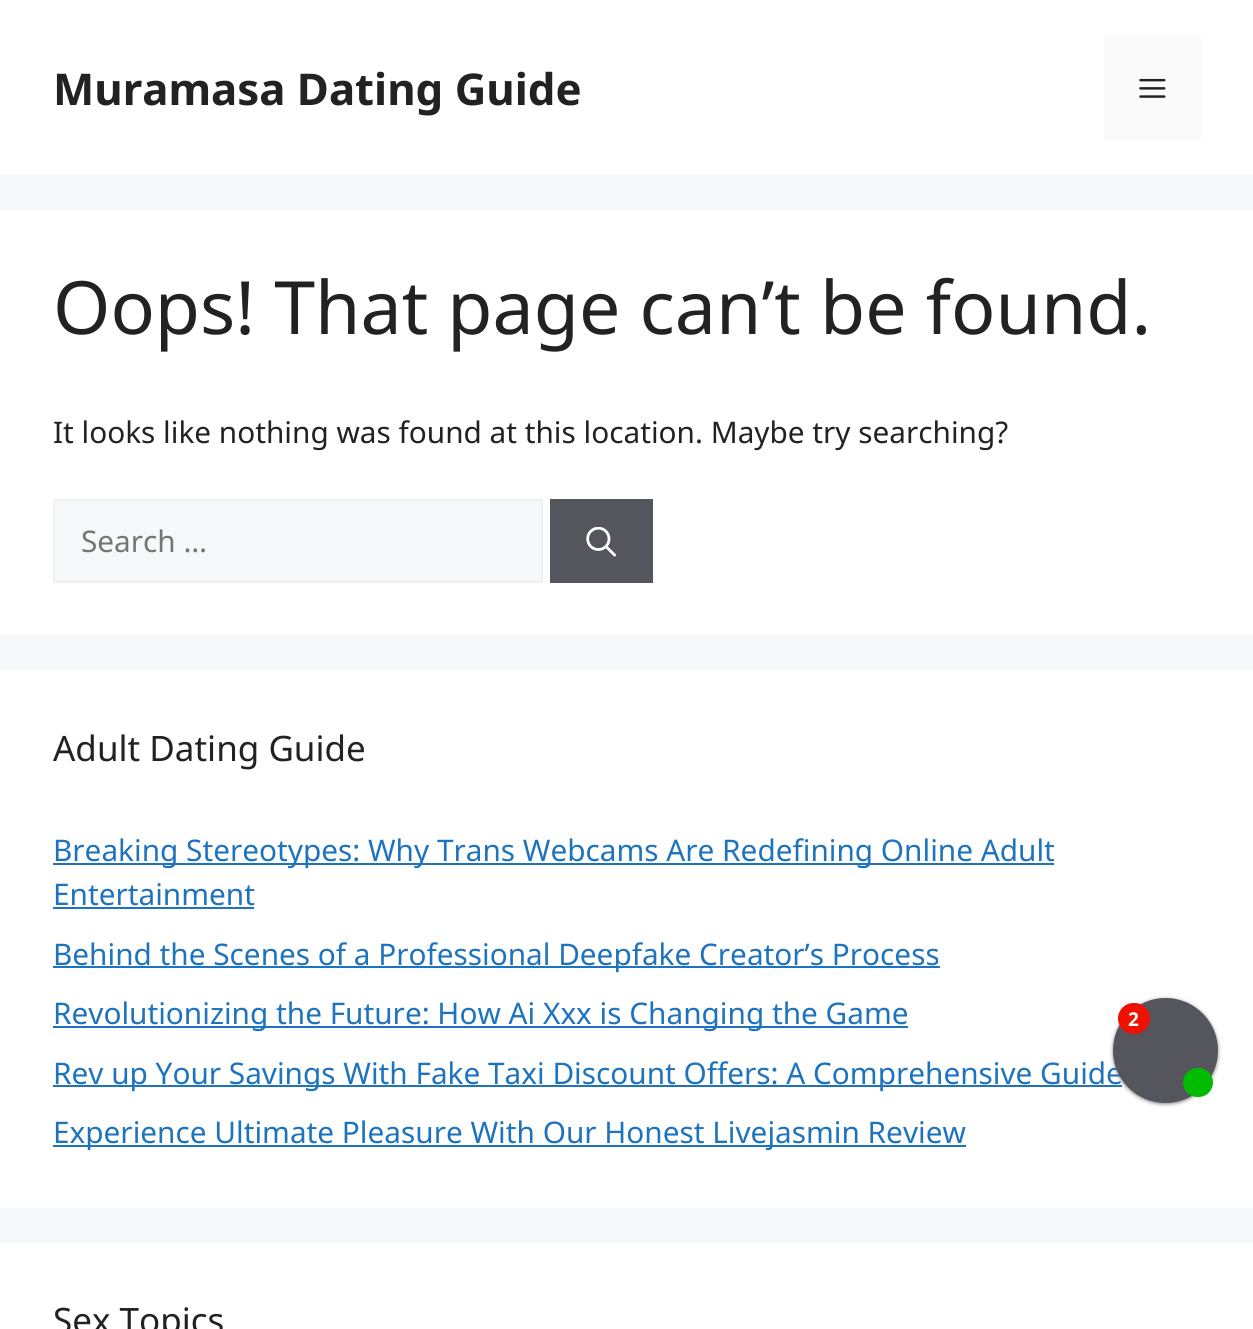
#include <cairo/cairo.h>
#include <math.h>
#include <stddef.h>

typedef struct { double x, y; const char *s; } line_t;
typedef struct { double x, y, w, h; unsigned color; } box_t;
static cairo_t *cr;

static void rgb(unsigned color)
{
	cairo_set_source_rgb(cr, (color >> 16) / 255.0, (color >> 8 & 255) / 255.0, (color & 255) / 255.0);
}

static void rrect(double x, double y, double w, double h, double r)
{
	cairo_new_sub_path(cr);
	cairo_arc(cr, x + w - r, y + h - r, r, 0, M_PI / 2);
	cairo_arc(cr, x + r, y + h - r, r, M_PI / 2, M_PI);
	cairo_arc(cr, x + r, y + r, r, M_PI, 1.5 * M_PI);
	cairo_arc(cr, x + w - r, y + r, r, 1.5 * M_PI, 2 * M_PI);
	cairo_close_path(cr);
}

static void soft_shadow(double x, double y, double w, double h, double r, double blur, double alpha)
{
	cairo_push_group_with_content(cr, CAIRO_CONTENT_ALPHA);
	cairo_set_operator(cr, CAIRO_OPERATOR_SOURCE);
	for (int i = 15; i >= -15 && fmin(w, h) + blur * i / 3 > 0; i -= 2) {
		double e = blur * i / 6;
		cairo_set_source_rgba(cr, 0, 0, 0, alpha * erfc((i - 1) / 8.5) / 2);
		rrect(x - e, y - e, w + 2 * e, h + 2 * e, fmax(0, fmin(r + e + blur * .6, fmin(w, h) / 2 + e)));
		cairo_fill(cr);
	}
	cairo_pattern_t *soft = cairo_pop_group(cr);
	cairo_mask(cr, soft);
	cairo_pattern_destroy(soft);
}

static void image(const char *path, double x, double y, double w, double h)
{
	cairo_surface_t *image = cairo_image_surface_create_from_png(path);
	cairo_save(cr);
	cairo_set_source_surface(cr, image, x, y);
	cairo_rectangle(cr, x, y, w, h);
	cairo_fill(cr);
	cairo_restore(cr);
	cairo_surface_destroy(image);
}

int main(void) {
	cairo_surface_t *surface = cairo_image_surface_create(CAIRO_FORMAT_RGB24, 1253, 1329);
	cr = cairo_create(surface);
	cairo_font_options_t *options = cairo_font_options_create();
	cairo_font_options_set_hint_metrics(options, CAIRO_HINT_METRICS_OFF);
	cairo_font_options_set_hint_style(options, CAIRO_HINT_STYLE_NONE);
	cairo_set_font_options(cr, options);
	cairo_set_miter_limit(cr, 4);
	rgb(0xf7f8f9);
	cairo_paint(cr);
	rgb(0xffffff);
	cairo_rectangle(cr, 0, 0, 1253, 175);
	cairo_fill(cr);
	rgb(0xfafafa);
	cairo_rectangle(cr, 1104, 35, 97, 105);
	cairo_fill(cr);
	image("img/1.png", 1139, 78, 27, 20);
	rgb(0xffffff);
	cairo_rectangle(cr, 0, 210, 1253, 425);
	cairo_fill(cr);
	rgb(0xf7f8f9);
	cairo_rectangle(cr, 54, 500, 488, 82);
	cairo_fill_preserve(cr);
	rgb(0xf0f0f0);
	cairo_stroke(cr);
	rgb(0x55555e);
	cairo_rectangle(cr, 550, 499, 103, 84);
	cairo_fill(cr);
	image("img/2.png", 586, 527, 30, 30);
	{
		static const box_t items[] = {
			{0, 670, 1253, 538, 0xffffff},
			{53, 863, 1001, 2, 0x1e73be},
			{53, 907, 201, 2, 0x1e73be},
			{53, 966, 887, 2, 0x1e73be},
			{53, 1026, 855, 2, 0x1e73be},
			{53, 1085, 1069, 2, 0x1e73be},
			{53, 1145, 913, 2, 0x1e73be},
			{0, 1243, 1253, 86, 0xffffff},
		};
		for (size_t i = 0; i < sizeof items / sizeof *items; i++) {
			rgb(items[i].color);
			cairo_rectangle(cr, items[i].x, items[i].y, items[i].w, items[i].h);
			cairo_fill(cr);
		}
	}
	rgb(0x000000);
	soft_shadow(1113, 999, 105, 105, 52.5, 2, 0.5);
	cairo_select_font_face(cr, "Noto Sans", CAIRO_FONT_SLANT_NORMAL, CAIRO_FONT_WEIGHT_BOLD);
	cairo_set_font_size(cr, 43.75);
	rgb(0x222222);
	cairo_move_to(cr, 53, 105);
	cairo_show_text(cr, "Muramasa Dating Guide");
	cairo_select_font_face(cr, "Noto Sans", CAIRO_FONT_SLANT_NORMAL, CAIRO_FONT_WEIGHT_NORMAL);
	cairo_set_font_size(cr, 73.5);
	cairo_move_to(cr, 53, 334);
	cairo_show_text(cr, "Oops! That page can’t be found.");
	cairo_set_font_size(cr, 29.75);
	cairo_move_to(cr, 53, 443);
	cairo_show_text(cr, "It looks like nothing was found at this location. Maybe try searching?");
	rgb(0x757575);
	cairo_move_to(cr, 81, 552);
	cairo_show_text(cr, "Search …");
	cairo_set_font_size(cr, 35);
	rgb(0x222222);
	cairo_move_to(cr, 53, 761);
	cairo_show_text(cr, "Adult Dating Guide");
	cairo_set_font_size(cr, 29.75);
	rgb(0x1e73be);
	{
		static const line_t items[] = {
			{53, 861, "Breaking Stereotypes: Why Trans Webcams Are Redefining Online Adult"},
			{53, 905, "Entertainment"},
			{53, 965, "Behind the Scenes of a Professional Deepfake Creator’s Process"},
			{53, 1024, "Revolutionizing the Future: How Ai Xxx is Changing the Game"},
			{53, 1084, "Rev up Your Savings With Fake Taxi Discount Offers: A Comprehensive Guide"},
			{53, 1143, "Experience Ultimate Pleasure With Our Honest Livejasmin Review"},
		};
		for (size_t i = 0; i < sizeof items / sizeof *items; i++) {
			cairo_move_to(cr, items[i].x, items[i].y);
			cairo_show_text(cr, items[i].s);
		}
	}
	cairo_set_font_size(cr, 35);
	rgb(0x222222);
	cairo_move_to(cr, 53, 1333);
	cairo_show_text(cr, "Sex Topics");
	rgb(0x55555e);
	cairo_new_path(cr);
	cairo_arc(cr, 1165.5, 1050.5, 52.5, 0, 2 * M_PI);
	cairo_fill(cr);
	rgb(0xee1100);
	rrect(1118, 1003, 32, 31, 15.5);
	cairo_fill(cr);
	cairo_select_font_face(cr, "Noto Sans", CAIRO_FONT_SLANT_NORMAL, CAIRO_FONT_WEIGHT_BOLD);
	cairo_set_font_size(cr, 19);
	rgb(0xffffff);
	cairo_move_to(cr, 1128, 1026);
	cairo_show_text(cr, "2");
	rgb(0x00bb00);
	rrect(1183, 1068, 30, 29, 14.5);
	cairo_fill(cr);
	cairo_surface_write_to_png(surface, "page.png");
	cairo_font_options_destroy(options);
	cairo_destroy(cr);
	cairo_surface_destroy(surface);
	return 0;
}
